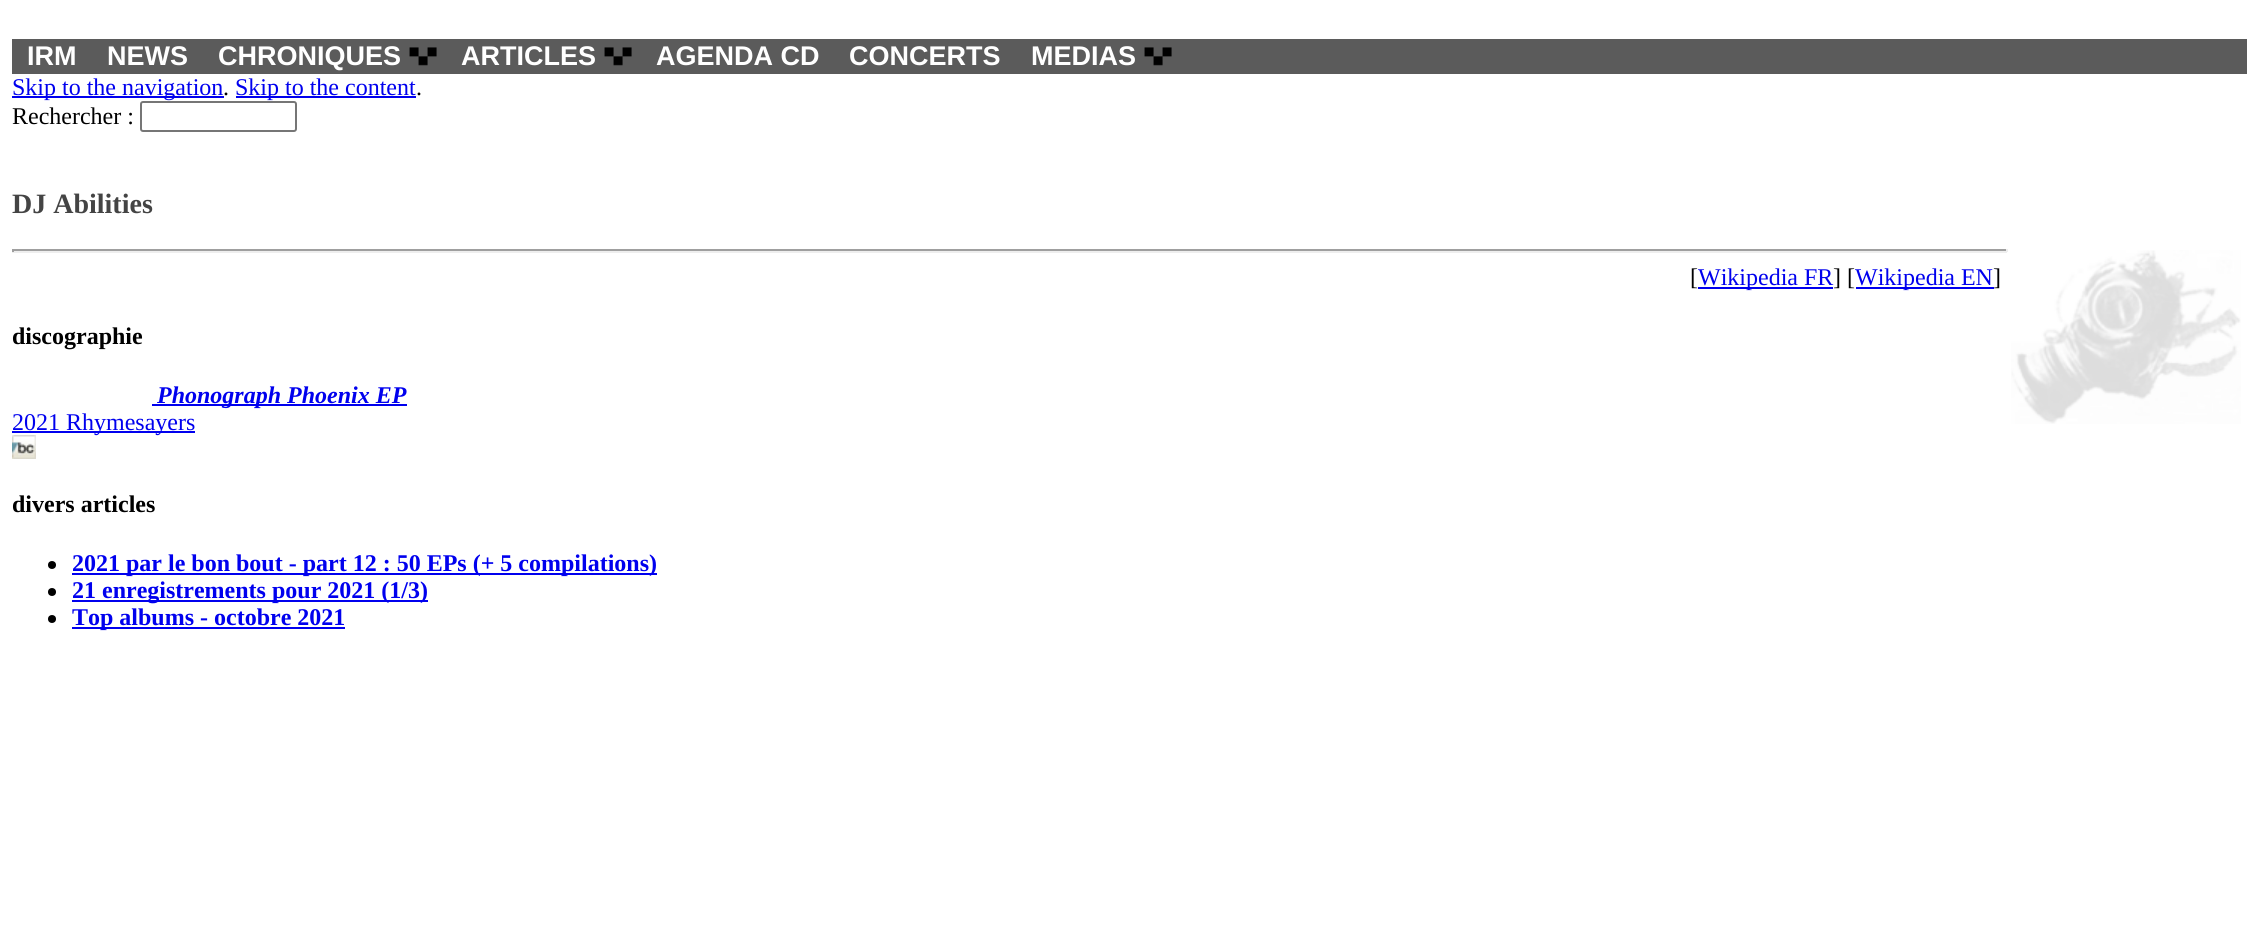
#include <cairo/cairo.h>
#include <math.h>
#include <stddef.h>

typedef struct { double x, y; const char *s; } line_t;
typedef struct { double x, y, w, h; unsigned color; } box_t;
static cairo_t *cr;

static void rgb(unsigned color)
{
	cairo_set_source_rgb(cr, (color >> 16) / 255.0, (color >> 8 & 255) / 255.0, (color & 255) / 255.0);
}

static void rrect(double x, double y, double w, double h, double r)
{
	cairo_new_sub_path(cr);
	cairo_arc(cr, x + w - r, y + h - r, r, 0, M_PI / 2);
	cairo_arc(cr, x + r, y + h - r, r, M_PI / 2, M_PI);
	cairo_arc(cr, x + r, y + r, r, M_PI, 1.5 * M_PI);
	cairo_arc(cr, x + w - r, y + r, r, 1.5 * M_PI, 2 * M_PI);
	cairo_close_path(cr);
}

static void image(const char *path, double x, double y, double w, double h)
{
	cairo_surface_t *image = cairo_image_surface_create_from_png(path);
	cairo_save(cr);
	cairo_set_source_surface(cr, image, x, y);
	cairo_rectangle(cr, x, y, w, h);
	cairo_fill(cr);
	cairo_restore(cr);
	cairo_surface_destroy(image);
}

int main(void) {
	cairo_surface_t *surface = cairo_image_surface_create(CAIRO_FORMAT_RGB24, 2258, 930);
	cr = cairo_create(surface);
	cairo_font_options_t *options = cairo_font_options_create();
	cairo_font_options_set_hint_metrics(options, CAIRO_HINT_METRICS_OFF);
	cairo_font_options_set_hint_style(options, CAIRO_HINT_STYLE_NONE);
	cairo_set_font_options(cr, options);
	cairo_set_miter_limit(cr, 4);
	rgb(0xffffff);
	cairo_paint(cr);
	rgb(0x5b5b5b);
	cairo_rectangle(cr, 12, 39, 2235, 35);
	cairo_fill(cr);
	image("img/1.png", 409, 47, 28, 19);
	image("img/1.png", 604, 47, 28, 19);
	image("img/1.png", 1144, 47, 28, 19);
	rgb(0x0000ee);
	cairo_rectangle(cr, 12, 96, 212, 2);
	cairo_fill(cr);
	cairo_rectangle(cr, 236, 96, 180, 2);
	cairo_fill(cr);
	rrect(141, 102, 155, 29, 2);
	rgb(0x767676);
	cairo_stroke(cr);
	{
		static const box_t items[] = {
			{12, 249, 1995, 2, 0x9f9f9f},
			{2006, 249, 2, 3, 0xeeeeee},
			{12, 251, 1995, 2, 0xeeeeee},
			{12, 249, 2, 3, 0x9f9f9f},
		};
		for (size_t i = 0; i < sizeof items / sizeof *items; i++) {
			rgb(items[i].color);
			cairo_rectangle(cr, items[i].x, items[i].y, items[i].w, items[i].h);
			cairo_fill(cr);
		}
	}
	image("img/2.png", 2011, 250, 230, 174);
	{
		static const box_t items[] = {
			{1698, 287, 135, 2, 0x0000ee},
			{1856, 287, 138, 2, 0x0000ee},
			{152, 404, 255, 2, 0x0000ee},
			{12, 431, 183, 2, 0x0000ee},
		};
		for (size_t i = 0; i < sizeof items / sizeof *items; i++) {
			rgb(items[i].color);
			cairo_rectangle(cr, items[i].x, items[i].y, items[i].w, items[i].h);
			cairo_fill(cr);
		}
	}
	rgb(0x000000);
	cairo_arc(cr, 52, 565, 4, 0, 2 * M_PI);
	cairo_fill(cr);
	rgb(0x0000ee);
	cairo_rectangle(cr, 72, 573, 585, 2);
	cairo_fill(cr);
	rgb(0x000000);
	cairo_arc(cr, 52, 592, 4, 0, 2 * M_PI);
	cairo_fill(cr);
	rgb(0x0000ee);
	cairo_rectangle(cr, 72, 600, 356, 2);
	cairo_fill(cr);
	rgb(0x000000);
	cairo_arc(cr, 52, 619, 4, 0, 2 * M_PI);
	cairo_fill(cr);
	rgb(0x0000ee);
	cairo_rectangle(cr, 72, 627, 273, 2);
	cairo_fill(cr);
	cairo_select_font_face(cr, "Liberation Sans", CAIRO_FONT_SLANT_NORMAL, CAIRO_FONT_WEIGHT_BOLD);
	cairo_set_font_size(cr, 27);
	rgb(0xffffff);
	{
		static const line_t items[] = {
			{27, 65, "IRM"},
			{107, 65, "NEWS"},
			{218, 65, "CHRONIQUES"},
			{461, 65, "ARTICLES"},
			{656, 65, "AGENDA CD"},
			{849, 65, "CONCERTS"},
			{1031, 65, "MEDIAS"},
		};
		for (size_t i = 0; i < sizeof items / sizeof *items; i++) {
			cairo_move_to(cr, items[i].x, items[i].y);
			cairo_show_text(cr, items[i].s);
		}
	}
	cairo_select_font_face(cr, "Liberation Serif", CAIRO_FONT_SLANT_NORMAL, CAIRO_FONT_WEIGHT_NORMAL);
	cairo_set_font_size(cr, 24);
	rgb(0x0000ee);
	cairo_move_to(cr, 12, 95);
	cairo_show_text(cr, "Skip to the navigation");
	rgb(0x000000);
	cairo_move_to(cr, 223, 95);
	cairo_show_text(cr, ".");
	rgb(0x0000ee);
	cairo_move_to(cr, 235, 95);
	cairo_show_text(cr, "Skip to the content");
	rgb(0x000000);
	cairo_move_to(cr, 416, 95);
	cairo_show_text(cr, ".");
	cairo_move_to(cr, 12, 124);
	cairo_show_text(cr, "Rechercher :");
	cairo_select_font_face(cr, "Liberation Serif", CAIRO_FONT_SLANT_NORMAL, CAIRO_FONT_WEIGHT_BOLD);
	cairo_set_font_size(cr, 28);
	rgb(0x444444);
	cairo_move_to(cr, 12, 213);
	cairo_show_text(cr, "DJ Abilities");
	cairo_select_font_face(cr, "Liberation Serif", CAIRO_FONT_SLANT_NORMAL, CAIRO_FONT_WEIGHT_NORMAL);
	cairo_set_font_size(cr, 24);
	rgb(0x000000);
	cairo_move_to(cr, 1690, 285);
	cairo_show_text(cr, "[");
	rgb(0x0000ee);
	cairo_move_to(cr, 1698, 285);
	cairo_show_text(cr, "Wikipedia FR");
	rgb(0x000000);
	cairo_move_to(cr, 1833, 285);
	cairo_show_text(cr, "] [");
	rgb(0x0000ee);
	cairo_move_to(cr, 1855, 285);
	cairo_show_text(cr, "Wikipedia EN");
	rgb(0x000000);
	cairo_move_to(cr, 1993, 285);
	cairo_show_text(cr, "]");
	cairo_select_font_face(cr, "Liberation Serif", CAIRO_FONT_SLANT_NORMAL, CAIRO_FONT_WEIGHT_BOLD);
	cairo_move_to(cr, 12, 344);
	cairo_show_text(cr, "discographie");
	cairo_select_font_face(cr, "Liberation Serif", CAIRO_FONT_SLANT_ITALIC, CAIRO_FONT_WEIGHT_BOLD);
	rgb(0x0000ee);
	cairo_move_to(cr, 157, 403);
	cairo_show_text(cr, "Phonograph Phoenix EP");
	cairo_select_font_face(cr, "Liberation Serif", CAIRO_FONT_SLANT_NORMAL, CAIRO_FONT_WEIGHT_NORMAL);
	cairo_move_to(cr, 12, 430);
	cairo_show_text(cr, "2021 Rhymesayers");
	image("img/3.png", 12, 435, 24, 24);
	cairo_select_font_face(cr, "Liberation Serif", CAIRO_FONT_SLANT_NORMAL, CAIRO_FONT_WEIGHT_BOLD);
	rgb(0x000000);
	cairo_move_to(cr, 12, 512);
	cairo_show_text(cr, "divers articles");
	rgb(0x0000ee);
	{
		static const line_t items[] = {
			{72, 571, "2021 par le bon bout - part 12 : 50 EPs (+ 5 compilations)"},
			{72, 598, "21 enregistrements pour 2021 (1/3)"},
			{72, 625, "Top albums - octobre 2021"},
		};
		for (size_t i = 0; i < sizeof items / sizeof *items; i++) {
			cairo_move_to(cr, items[i].x, items[i].y);
			cairo_show_text(cr, items[i].s);
		}
	}
	cairo_surface_write_to_png(surface, "page.png");
	cairo_font_options_destroy(options);
	cairo_destroy(cr);
	cairo_surface_destroy(surface);
	return 0;
}
